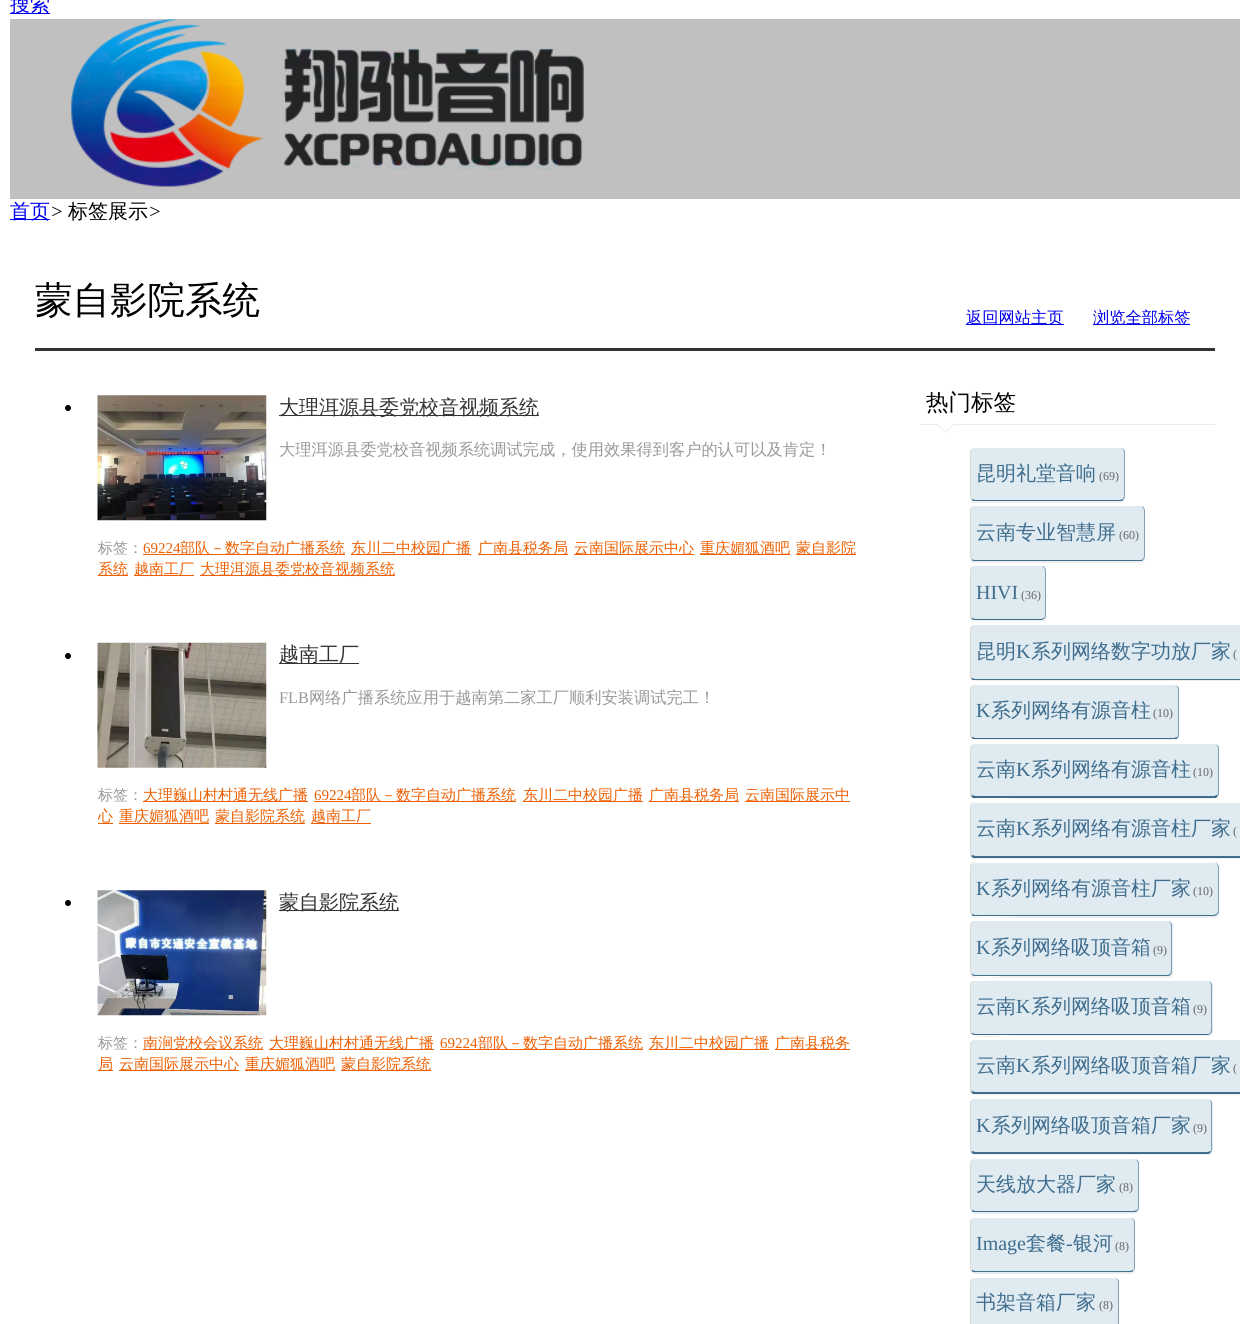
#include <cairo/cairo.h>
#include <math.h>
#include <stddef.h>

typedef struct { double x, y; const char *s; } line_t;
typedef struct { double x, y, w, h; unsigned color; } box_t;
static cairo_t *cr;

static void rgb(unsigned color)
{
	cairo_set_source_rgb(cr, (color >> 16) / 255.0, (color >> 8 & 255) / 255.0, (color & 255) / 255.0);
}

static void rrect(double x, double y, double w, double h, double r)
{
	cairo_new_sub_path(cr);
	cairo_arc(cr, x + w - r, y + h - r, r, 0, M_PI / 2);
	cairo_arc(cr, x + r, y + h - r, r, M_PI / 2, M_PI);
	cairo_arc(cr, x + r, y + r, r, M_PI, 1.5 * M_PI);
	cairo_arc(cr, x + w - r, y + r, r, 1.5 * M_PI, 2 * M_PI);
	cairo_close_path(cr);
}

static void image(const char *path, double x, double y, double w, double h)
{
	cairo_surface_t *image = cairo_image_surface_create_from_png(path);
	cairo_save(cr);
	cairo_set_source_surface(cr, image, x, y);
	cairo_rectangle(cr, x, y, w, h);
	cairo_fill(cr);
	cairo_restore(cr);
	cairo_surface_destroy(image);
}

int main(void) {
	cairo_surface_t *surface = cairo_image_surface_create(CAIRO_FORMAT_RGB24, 1249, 1324);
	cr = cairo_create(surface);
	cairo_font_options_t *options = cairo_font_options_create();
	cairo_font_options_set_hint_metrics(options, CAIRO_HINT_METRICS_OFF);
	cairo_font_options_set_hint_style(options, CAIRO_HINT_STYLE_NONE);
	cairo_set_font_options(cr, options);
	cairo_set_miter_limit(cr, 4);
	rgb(0xffffff);
	cairo_paint(cr);
	rgb(0x0000ee);
	cairo_rectangle(cr, 10, 13, 40, 1);
	cairo_fill(cr);
	rgb(0xc0c0c0);
	cairo_rectangle(cr, 10, 19, 1230, 180);
	cairo_fill(cr);
	image("img/1.png", 71, 19, 513, 168);
	{
		static const box_t items[] = {
			{10, 219, 40, 1, 0x0000ee},
			{35, 348, 1180, 3, 0x333333},
			{966, 324, 98, 1, 0x0000ee},
			{1093, 324, 97, 1, 0x0000ee},
		};
		for (size_t i = 0; i < sizeof items / sizeof *items; i++) {
			rgb(items[i].color);
			cairo_rectangle(cr, items[i].x, items[i].y, items[i].w, items[i].h);
			cairo_fill(cr);
		}
	}
	rgb(0x000000);
	cairo_arc(cr, 68, 408, 3, 0, 2 * M_PI);
	cairo_fill(cr);
	image("img/2.png", 97, 395, 170, 126);
	{
		static const box_t items[] = {
			{279, 415, 260, 1, 0x333333},
			{143, 554, 202, 1, 0xed5f01},
			{351, 554, 120, 1, 0xed5f01},
			{478, 554, 90, 1, 0xed5f01},
			{574, 554, 120, 1, 0xed5f01},
			{700, 554, 90, 1, 0xed5f01},
			{796, 554, 60, 1, 0xed5f01},
			{98, 575, 30, 1, 0xed5f01},
			{134, 575, 60, 1, 0xed5f01},
			{200, 575, 195, 1, 0xed5f01},
		};
		for (size_t i = 0; i < sizeof items / sizeof *items; i++) {
			rgb(items[i].color);
			cairo_rectangle(cr, items[i].x, items[i].y, items[i].w, items[i].h);
			cairo_fill(cr);
		}
	}
	rgb(0x000000);
	cairo_arc(cr, 68, 656, 3, 0, 2 * M_PI);
	cairo_fill(cr);
	image("img/3.png", 97, 642, 170, 126);
	{
		static const box_t items[] = {
			{279, 663, 80, 1, 0x333333},
			{143, 801, 165, 1, 0xed5f01},
			{314, 801, 202, 1, 0xed5f01},
			{523, 801, 120, 1, 0xed5f01},
			{649, 801, 90, 1, 0xed5f01},
			{745, 801, 105, 1, 0xed5f01},
			{98, 823, 15, 1, 0xed5f01},
			{119, 823, 90, 1, 0xed5f01},
			{215, 823, 90, 1, 0xed5f01},
			{311, 823, 60, 1, 0xed5f01},
		};
		for (size_t i = 0; i < sizeof items / sizeof *items; i++) {
			rgb(items[i].color);
			cairo_rectangle(cr, items[i].x, items[i].y, items[i].w, items[i].h);
			cairo_fill(cr);
		}
	}
	rgb(0x000000);
	cairo_arc(cr, 68, 903, 3, 0, 2 * M_PI);
	cairo_fill(cr);
	image("img/4.png", 97, 890, 170, 126);
	{
		static const box_t items[] = {
			{279, 910, 120, 1, 0x333333},
			{143, 1049, 120, 1, 0xed5f01},
			{269, 1049, 165, 1, 0xed5f01},
			{440, 1049, 203, 1, 0xed5f01},
			{649, 1049, 120, 1, 0xed5f01},
			{775, 1049, 75, 1, 0xed5f01},
			{98, 1070, 15, 1, 0xed5f01},
			{119, 1070, 120, 1, 0xed5f01},
			{245, 1070, 90, 1, 0xed5f01},
			{341, 1070, 90, 1, 0xed5f01},
			{920, 424, 295, 1, 0xebebeb},
		};
		for (size_t i = 0; i < sizeof items / sizeof *items; i++) {
			rgb(items[i].color);
			cairo_rectangle(cr, items[i].x, items[i].y, items[i].w, items[i].h);
			cairo_fill(cr);
		}
	}
	image("img/5.png", 937, 424, 17, 9);
	rgb(0xeeeeee);
	cairo_new_path(cr);
	cairo_move_to(cr, 970, 496);
	cairo_line_to(cr, 970, 498);
	cairo_curve_to(cr, 970, 501, 972, 503, 975, 503);
	cairo_line_to(cr, 1120, 503);
	cairo_curve_to(cr, 1123, 503, 1125, 501, 1125, 498);
	cairo_line_to(cr, 1125, 496);
	cairo_curve_to(cr, 1125, 499, 1123, 501, 1120, 501);
	cairo_line_to(cr, 975, 501);
	cairo_curve_to(cr, 972, 501, 970, 499, 970, 496);
	cairo_close_path(cr);
	cairo_fill(cr);
	rgb(0xe0eaf1);
	rrect(970, 448, 155, 53, 5);
	cairo_fill(cr);
	rgb(0x7f9fb6);
	cairo_new_path(cr);
	cairo_move_to(cr, 1125, 496);
	cairo_line_to(cr, 1125, 452);
	cairo_curve_to(cr, 1125, 450, 1123, 448, 1120, 448);
	cairo_curve_to(cr, 1122, 448, 1124, 450, 1124, 452);
	cairo_line_to(cr, 1124, 496);
	cairo_curve_to(cr, 1124, 497, 1123, 498, 1123, 499);
	cairo_line_to(cr, 1123, 500);
	cairo_curve_to(cr, 1124, 499, 1125, 498, 1125, 496);
	cairo_close_path(cr);
	cairo_fill(cr);
	rgb(0x3e6d8e);
	cairo_new_path(cr);
	cairo_move_to(cr, 972, 499);
	cairo_line_to(cr, 975, 500);
	cairo_line_to(cr, 1120, 500);
	cairo_line_to(cr, 1123, 499);
	cairo_line_to(cr, 1123, 500);
	cairo_curve_to(cr, 1123, 501, 1121, 501, 1120, 501);
	cairo_line_to(cr, 975, 501);
	cairo_curve_to(cr, 974, 501, 972, 501, 972, 500);
	cairo_close_path(cr);
	cairo_fill(cr);
	rgb(0xdbdbd5);
	cairo_new_path(cr);
	cairo_move_to(cr, 975, 448);
	cairo_curve_to(cr, 973, 448, 971, 450, 971, 452);
	cairo_line_to(cr, 971, 496);
	cairo_curve_to(cr, 971, 497, 972, 498, 972, 499);
	cairo_line_to(cr, 972, 500);
	cairo_curve_to(cr, 971, 499, 970, 498, 970, 496);
	cairo_line_to(cr, 970, 452);
	cairo_curve_to(cr, 970, 450, 972, 448, 975, 448);
	cairo_close_path(cr);
	cairo_fill(cr);
	rgb(0xeeeeee);
	cairo_new_path(cr);
	cairo_move_to(cr, 970, 556);
	cairo_line_to(cr, 970, 558);
	cairo_curve_to(cr, 970, 561, 972, 563, 975, 563);
	cairo_line_to(cr, 1140, 563);
	cairo_curve_to(cr, 1143, 563, 1145, 561, 1145, 558);
	cairo_line_to(cr, 1145, 556);
	cairo_curve_to(cr, 1145, 559, 1143, 561, 1140, 561);
	cairo_line_to(cr, 975, 561);
	cairo_curve_to(cr, 972, 561, 970, 559, 970, 556);
	cairo_close_path(cr);
	cairo_fill(cr);
	rgb(0xe0eaf1);
	rrect(970, 506, 175, 55, 5);
	cairo_fill(cr);
	rgb(0x7f9fb6);
	cairo_new_path(cr);
	cairo_move_to(cr, 1143, 559);
	cairo_curve_to(cr, 1143, 558, 1144, 557, 1144, 556);
	cairo_line_to(cr, 1144, 511);
	cairo_curve_to(cr, 1144, 509, 1143, 507, 1141, 506);
	cairo_line_to(cr, 1142, 506);
	cairo_curve_to(cr, 1144, 507, 1145, 509, 1145, 511);
	cairo_line_to(cr, 1145, 556);
	cairo_curve_to(cr, 1145, 558, 1144, 559, 1143, 560);
	cairo_close_path(cr);
	cairo_fill(cr);
	rgb(0x3e6d8e);
	cairo_new_path(cr);
	cairo_move_to(cr, 972, 559);
	cairo_curve_to(cr, 973, 560, 974, 560, 975, 560);
	cairo_line_to(cr, 1140, 560);
	cairo_curve_to(cr, 1141, 560, 1142, 560, 1143, 559);
	cairo_line_to(cr, 1143, 560);
	cairo_curve_to(cr, 1143, 561, 1141, 561, 1140, 561);
	cairo_line_to(cr, 975, 561);
	cairo_curve_to(cr, 974, 561, 972, 561, 972, 560);
	cairo_close_path(cr);
	cairo_fill(cr);
	rgb(0xdbdbd5);
	cairo_new_path(cr);
	cairo_move_to(cr, 974, 506);
	cairo_curve_to(cr, 972, 507, 971, 509, 971, 511);
	cairo_line_to(cr, 971, 556);
	cairo_curve_to(cr, 971, 557, 972, 558, 972, 559);
	cairo_line_to(cr, 972, 560);
	cairo_curve_to(cr, 971, 559, 970, 558, 970, 556);
	cairo_line_to(cr, 970, 511);
	cairo_curve_to(cr, 970, 509, 971, 507, 973, 506);
	cairo_close_path(cr);
	cairo_fill(cr);
	rgb(0xeeeeee);
	cairo_new_path(cr);
	cairo_move_to(cr, 970, 615);
	cairo_line_to(cr, 970, 616);
	cairo_curve_to(cr, 970, 619, 972, 621, 975, 621);
	cairo_line_to(cr, 1041, 621);
	cairo_curve_to(cr, 1044, 621, 1046, 619, 1046, 617);
	cairo_curve_to(cr, 1045, 619, 1043, 620, 1041, 620);
	cairo_line_to(cr, 975, 620);
	cairo_curve_to(cr, 972, 620, 970, 618, 970, 615);
	cairo_close_path(cr);
	cairo_fill(cr);
	rgb(0xe0eaf1);
	rrect(970, 566, 76, 54, 5);
	cairo_fill(cr);
	rgb(0x7f9fb6);
	cairo_new_path(cr);
	cairo_move_to(cr, 1044, 618);
	cairo_curve_to(cr, 1045, 617, 1045, 616, 1045, 615);
	cairo_line_to(cr, 1045, 571);
	cairo_curve_to(cr, 1045, 569, 1044, 567, 1042, 566);
	cairo_line_to(cr, 1043, 566);
	cairo_curve_to(cr, 1045, 567, 1046, 569, 1046, 571);
	cairo_line_to(cr, 1046, 615);
	cairo_curve_to(cr, 1046, 616, 1046, 618, 1045, 618);
	cairo_close_path(cr);
	cairo_fill(cr);
	rgb(0x3e6d8e);
	cairo_new_path(cr);
	cairo_move_to(cr, 972, 618);
	cairo_line_to(cr, 975, 619);
	cairo_line_to(cr, 1041, 619);
	cairo_line_to(cr, 1044, 618);
	cairo_line_to(cr, 1045, 618);
	cairo_line_to(cr, 1042, 620);
	cairo_line_to(cr, 974, 620);
	cairo_line_to(cr, 971, 619);
	cairo_close_path(cr);
	cairo_fill(cr);
	rgb(0xdbdbd5);
	cairo_new_path(cr);
	cairo_move_to(cr, 974, 566);
	cairo_curve_to(cr, 972, 567, 971, 569, 971, 571);
	cairo_line_to(cr, 971, 615);
	cairo_curve_to(cr, 971, 616, 972, 617, 972, 618);
	cairo_line_to(cr, 971, 619);
	cairo_curve_to(cr, 970, 618, 970, 616, 970, 615);
	cairo_line_to(cr, 970, 571);
	cairo_curve_to(cr, 970, 569, 971, 567, 973, 566);
	cairo_close_path(cr);
	cairo_fill(cr);
	cairo_save(cr);
	cairo_rectangle(cr, 10, 225, 1230, 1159);
	cairo_clip(cr);
	rgb(0xeeeeee);
	cairo_new_path(cr);
	cairo_move_to(cr, 970, 675);
	cairo_line_to(cr, 970, 676);
	cairo_curve_to(cr, 970, 679, 972, 681, 975, 681);
	cairo_line_to(cr, 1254, 681);
	cairo_curve_to(cr, 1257, 681, 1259, 679, 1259, 676);
	cairo_line_to(cr, 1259, 629);
	cairo_line_to(cr, 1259, 675);
	cairo_curve_to(cr, 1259, 678, 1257, 680, 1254, 680);
	cairo_line_to(cr, 975, 680);
	cairo_curve_to(cr, 972, 680, 970, 678, 970, 675);
	cairo_close_path(cr);
	cairo_fill(cr);
	cairo_restore(cr);
	rgb(0xe0eaf1);
	cairo_new_path(cr);
	cairo_move_to(cr, 975, 625);
	cairo_line_to(cr, 1240, 625);
	cairo_line_to(cr, 1240, 680);
	cairo_line_to(cr, 975, 680);
	cairo_curve_to(cr, 972, 680, 970, 678, 970, 675);
	cairo_line_to(cr, 970, 630);
	cairo_curve_to(cr, 970, 627, 972, 625, 975, 625);
	cairo_close_path(cr);
	cairo_fill(cr);
	cairo_save(cr);
	cairo_rectangle(cr, 10, 225, 1230, 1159);
	cairo_clip(cr);
	rgb(0x3e6d8e);
	cairo_new_path(cr);
	cairo_move_to(cr, 972, 678);
	cairo_curve_to(cr, 973, 678, 974, 679, 975, 679);
	cairo_line_to(cr, 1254, 679);
	cairo_curve_to(cr, 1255, 679, 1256, 679, 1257, 678);
	cairo_line_to(cr, 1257, 679);
	cairo_curve_to(cr, 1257, 680, 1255, 680, 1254, 680);
	cairo_line_to(cr, 975, 680);
	cairo_curve_to(cr, 974, 680, 972, 680, 971, 679);
	cairo_close_path(cr);
	cairo_fill(cr);
	cairo_restore(cr);
	rgb(0xdbdbd5);
	cairo_new_path(cr);
	cairo_move_to(cr, 975, 625);
	cairo_curve_to(cr, 972, 625, 970, 627, 970, 630);
	cairo_line_to(cr, 970, 675);
	cairo_curve_to(cr, 970, 676, 970, 678, 971, 679);
	cairo_line_to(cr, 972, 678);
	cairo_curve_to(cr, 972, 677, 971, 676, 971, 675);
	cairo_line_to(cr, 971, 630);
	cairo_curve_to(cr, 971, 627, 973, 625, 975, 625);
	cairo_close_path(cr);
	cairo_fill(cr);
	rgb(0xeeeeee);
	cairo_new_path(cr);
	cairo_move_to(cr, 970, 734);
	cairo_line_to(cr, 970, 735);
	cairo_curve_to(cr, 970, 738, 972, 740, 975, 740);
	cairo_line_to(cr, 1174, 740);
	cairo_curve_to(cr, 1177, 740, 1179, 738, 1179, 735);
	cairo_line_to(cr, 1179, 689);
	cairo_line_to(cr, 1179, 734);
	cairo_curve_to(cr, 1179, 737, 1177, 739, 1174, 739);
	cairo_line_to(cr, 975, 739);
	cairo_curve_to(cr, 972, 739, 970, 737, 970, 734);
	cairo_close_path(cr);
	cairo_fill(cr);
	rgb(0xe0eaf1);
	rrect(970, 685, 209, 54, 5);
	cairo_fill(cr);
	rgb(0x7f9fb6);
	cairo_new_path(cr);
	cairo_move_to(cr, 1179, 688);
	cairo_curve_to(cr, 1178, 686, 1176, 685, 1174, 685);
	cairo_curve_to(cr, 1176, 685, 1178, 687, 1178, 690);
	cairo_line_to(cr, 1178, 734);
	cairo_curve_to(cr, 1178, 735, 1178, 736, 1177, 737);
	cairo_line_to(cr, 1178, 738);
	cairo_line_to(cr, 1179, 736);
	cairo_close_path(cr);
	cairo_fill(cr);
	rgb(0x3e6d8e);
	cairo_new_path(cr);
	cairo_move_to(cr, 972, 737);
	cairo_line_to(cr, 975, 738);
	cairo_line_to(cr, 1174, 738);
	cairo_line_to(cr, 1177, 737);
	cairo_line_to(cr, 1178, 738);
	cairo_line_to(cr, 1176, 739);
	cairo_line_to(cr, 973, 739);
	cairo_line_to(cr, 971, 737);
	cairo_close_path(cr);
	cairo_fill(cr);
	rgb(0xdbdbd5);
	cairo_new_path(cr);
	cairo_move_to(cr, 975, 685);
	cairo_curve_to(cr, 972, 685, 970, 687, 970, 690);
	cairo_line_to(cr, 970, 734);
	cairo_curve_to(cr, 970, 735, 970, 737, 971, 737);
	cairo_line_to(cr, 972, 737);
	cairo_curve_to(cr, 971, 736, 971, 735, 971, 734);
	cairo_line_to(cr, 971, 690);
	cairo_curve_to(cr, 971, 687, 973, 685, 975, 685);
	cairo_close_path(cr);
	cairo_fill(cr);
	rgb(0xeeeeee);
	cairo_new_path(cr);
	cairo_move_to(cr, 970, 792);
	cairo_line_to(cr, 970, 794);
	cairo_curve_to(cr, 970, 797, 972, 799, 975, 799);
	cairo_line_to(cr, 1214, 799);
	cairo_curve_to(cr, 1217, 799, 1219, 797, 1219, 794);
	cairo_line_to(cr, 1219, 748);
	cairo_line_to(cr, 1219, 785);
	cairo_curve_to(cr, 1219, 789, 1220, 797, 1214, 798);
	cairo_line_to(cr, 1015, 798);
	cairo_curve_to(cr, 1011, 798, 970, 804, 970, 792);
	cairo_close_path(cr);
	cairo_fill(cr);
	rgb(0xe0eaf1);
	rrect(970, 744, 249, 54, 5);
	cairo_fill(cr);
	rgb(0x7f9fb6);
	cairo_new_path(cr);
	cairo_move_to(cr, 1219, 794);
	cairo_line_to(cr, 1218, 796);
	cairo_line_to(cr, 1217, 795);
	cairo_curve_to(cr, 1217, 795, 1218, 794, 1218, 792);
	cairo_line_to(cr, 1218, 749);
	cairo_curve_to(cr, 1218, 746, 1216, 744, 1214, 744);
	cairo_curve_to(cr, 1216, 744, 1218, 745, 1219, 747);
	cairo_close_path(cr);
	cairo_fill(cr);
	rgb(0x3e6d8e);
	cairo_new_path(cr);
	cairo_move_to(cr, 972, 795);
	cairo_line_to(cr, 975, 796);
	cairo_line_to(cr, 1214, 796);
	cairo_line_to(cr, 1217, 795);
	cairo_line_to(cr, 1218, 796);
	cairo_line_to(cr, 1216, 798);
	cairo_line_to(cr, 973, 798);
	cairo_line_to(cr, 971, 796);
	cairo_close_path(cr);
	cairo_fill(cr);
	rgb(0xdbdbd5);
	cairo_new_path(cr);
	cairo_move_to(cr, 975, 744);
	cairo_curve_to(cr, 973, 744, 971, 746, 971, 749);
	cairo_line_to(cr, 971, 792);
	cairo_curve_to(cr, 971, 794, 972, 795, 972, 795);
	cairo_line_to(cr, 971, 796);
	cairo_curve_to(cr, 970, 795, 970, 794, 970, 792);
	cairo_line_to(cr, 970, 749);
	cairo_curve_to(cr, 970, 746, 972, 744, 975, 744);
	cairo_close_path(cr);
	cairo_fill(cr);
	cairo_save(cr);
	cairo_rectangle(cr, 10, 225, 1230, 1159);
	cairo_clip(cr);
	rgb(0xeeeeee);
	cairo_new_path(cr);
	cairo_move_to(cr, 970, 852);
	cairo_line_to(cr, 970, 854);
	cairo_curve_to(cr, 970, 857, 972, 859, 975, 859);
	cairo_line_to(cr, 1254, 859);
	cairo_curve_to(cr, 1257, 859, 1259, 857, 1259, 854);
	cairo_line_to(cr, 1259, 807);
	cairo_line_to(cr, 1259, 852);
	cairo_curve_to(cr, 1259, 855, 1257, 858, 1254, 858);
	cairo_line_to(cr, 975, 858);
	cairo_curve_to(cr, 972, 858, 970, 855, 970, 852);
	cairo_close_path(cr);
	cairo_fill(cr);
	cairo_restore(cr);
	rgb(0xe0eaf1);
	cairo_new_path(cr);
	cairo_move_to(cr, 975, 803);
	cairo_line_to(cr, 1240, 803);
	cairo_line_to(cr, 1240, 858);
	cairo_line_to(cr, 975, 858);
	cairo_curve_to(cr, 972, 858, 970, 856, 970, 853);
	cairo_line_to(cr, 970, 808);
	cairo_curve_to(cr, 970, 805, 972, 803, 975, 803);
	cairo_close_path(cr);
	cairo_fill(cr);
	cairo_save(cr);
	cairo_rectangle(cr, 10, 225, 1230, 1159);
	cairo_clip(cr);
	rgb(0x3e6d8e);
	cairo_new_path(cr);
	cairo_move_to(cr, 973, 858);
	cairo_line_to(cr, 971, 856);
	cairo_line_to(cr, 972, 855);
	cairo_line_to(cr, 975, 856);
	cairo_line_to(cr, 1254, 856);
	cairo_line_to(cr, 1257, 855);
	cairo_line_to(cr, 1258, 856);
	cairo_line_to(cr, 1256, 858);
	cairo_close_path(cr);
	cairo_fill(cr);
	cairo_restore(cr);
	rgb(0xdbdbd5);
	cairo_new_path(cr);
	cairo_move_to(cr, 974, 802);
	cairo_curve_to(cr, 972, 803, 971, 806, 971, 808);
	cairo_line_to(cr, 971, 852);
	cairo_curve_to(cr, 971, 854, 972, 855, 972, 855);
	cairo_line_to(cr, 971, 856);
	cairo_curve_to(cr, 970, 855, 970, 854, 970, 852);
	cairo_line_to(cr, 970, 808);
	cairo_curve_to(cr, 970, 806, 971, 803, 973, 802);
	cairo_close_path(cr);
	cairo_fill(cr);
	rgb(0xeeeeee);
	cairo_new_path(cr);
	cairo_move_to(cr, 970, 911);
	cairo_line_to(cr, 970, 913);
	cairo_curve_to(cr, 970, 916, 972, 918, 975, 918);
	cairo_line_to(cr, 1214, 918);
	cairo_curve_to(cr, 1217, 918, 1219, 916, 1219, 913);
	cairo_line_to(cr, 1219, 867);
	cairo_line_to(cr, 1219, 904);
	cairo_curve_to(cr, 1219, 908, 1220, 916, 1214, 916);
	cairo_line_to(cr, 1015, 916);
	cairo_curve_to(cr, 1011, 916, 970, 923, 970, 911);
	cairo_close_path(cr);
	cairo_fill(cr);
	rgb(0xe0eaf1);
	rrect(970, 863, 249, 53, 5);
	cairo_fill(cr);
	rgb(0x7f9fb6);
	cairo_new_path(cr);
	cairo_move_to(cr, 1216, 914);
	cairo_curve_to(cr, 1217, 913, 1218, 912, 1218, 911);
	cairo_line_to(cr, 1218, 868);
	cairo_curve_to(cr, 1218, 866, 1217, 863, 1215, 862);
	cairo_line_to(cr, 1216, 862);
	cairo_curve_to(cr, 1217, 863, 1218, 865, 1219, 866);
	cairo_line_to(cr, 1219, 913);
	cairo_line_to(cr, 1217, 915);
	cairo_close_path(cr);
	cairo_fill(cr);
	rgb(0x3e6d8e);
	cairo_new_path(cr);
	cairo_move_to(cr, 1217, 915);
	cairo_line_to(cr, 1214, 916);
	cairo_line_to(cr, 975, 916);
	cairo_curve_to(cr, 974, 916, 972, 916, 972, 915);
	cairo_line_to(cr, 972, 914);
	cairo_line_to(cr, 975, 915);
	cairo_line_to(cr, 1214, 915);
	cairo_line_to(cr, 1216, 914);
	cairo_close_path(cr);
	cairo_fill(cr);
	rgb(0xdbdbd5);
	cairo_new_path(cr);
	cairo_move_to(cr, 974, 862);
	cairo_curve_to(cr, 972, 863, 971, 866, 971, 868);
	cairo_line_to(cr, 971, 911);
	cairo_curve_to(cr, 971, 912, 972, 913, 972, 914);
	cairo_line_to(cr, 972, 915);
	cairo_curve_to(cr, 971, 914, 970, 913, 970, 911);
	cairo_line_to(cr, 970, 868);
	cairo_curve_to(cr, 970, 866, 971, 863, 973, 862);
	cairo_close_path(cr);
	cairo_fill(cr);
	rgb(0xeeeeee);
	cairo_new_path(cr);
	cairo_move_to(cr, 970, 971);
	cairo_line_to(cr, 970, 973);
	cairo_curve_to(cr, 970, 976, 972, 978, 975, 978);
	cairo_line_to(cr, 1168, 978);
	cairo_curve_to(cr, 1171, 978, 1173, 976, 1173, 973);
	cairo_line_to(cr, 1173, 928);
	cairo_line_to(cr, 1172, 926);
	cairo_line_to(cr, 1172, 964);
	cairo_curve_to(cr, 1172, 968, 1174, 976, 1168, 976);
	cairo_line_to(cr, 1007, 976);
	cairo_curve_to(cr, 998, 976, 970, 982, 970, 971);
	cairo_close_path(cr);
	cairo_fill(cr);
	rgb(0xe0eaf1);
	rrect(970, 921, 203, 55, 5);
	cairo_fill(cr);
	rgb(0x7f9fb6);
	cairo_new_path(cr);
	cairo_move_to(cr, 1170, 974);
	cairo_line_to(cr, 1171, 971);
	cairo_line_to(cr, 1171, 926);
	cairo_curve_to(cr, 1171, 924, 1170, 922, 1169, 921);
	cairo_curve_to(cr, 1170, 921, 1171, 923, 1172, 924);
	cairo_line_to(cr, 1172, 972);
	cairo_line_to(cr, 1171, 975);
	cairo_close_path(cr);
	cairo_fill(cr);
	rgb(0x3e6d8e);
	cairo_new_path(cr);
	cairo_move_to(cr, 1171, 975);
	cairo_curve_to(cr, 1170, 975, 1169, 976, 1168, 976);
	cairo_line_to(cr, 974, 976);
	cairo_line_to(cr, 972, 975);
	cairo_line_to(cr, 972, 974);
	cairo_line_to(cr, 975, 975);
	cairo_line_to(cr, 1168, 975);
	cairo_line_to(cr, 1170, 974);
	cairo_close_path(cr);
	cairo_fill(cr);
	rgb(0xdbdbd5);
	cairo_new_path(cr);
	cairo_move_to(cr, 974, 921);
	cairo_curve_to(cr, 972, 922, 971, 924, 971, 926);
	cairo_line_to(cr, 971, 971);
	cairo_curve_to(cr, 971, 972, 972, 973, 972, 974);
	cairo_line_to(cr, 972, 975);
	cairo_curve_to(cr, 971, 974, 970, 973, 970, 971);
	cairo_line_to(cr, 970, 926);
	cairo_curve_to(cr, 970, 924, 971, 922, 973, 921);
	cairo_close_path(cr);
	cairo_fill(cr);
	rgb(0xeeeeee);
	cairo_new_path(cr);
	cairo_move_to(cr, 970, 1030);
	cairo_line_to(cr, 970, 1031);
	cairo_curve_to(cr, 970, 1034, 972, 1036, 975, 1036);
	cairo_line_to(cr, 1208, 1036);
	cairo_curve_to(cr, 1211, 1036, 1213, 1034, 1213, 1031);
	cairo_line_to(cr, 1213, 988);
	cairo_line_to(cr, 1212, 986);
	cairo_line_to(cr, 1212, 1023);
	cairo_curve_to(cr, 1212, 1027, 1214, 1035, 1208, 1035);
	cairo_line_to(cr, 1014, 1035);
	cairo_curve_to(cr, 1009, 1035, 970, 1042, 970, 1030);
	cairo_close_path(cr);
	cairo_fill(cr);
	rgb(0xe0eaf1);
	rrect(970, 981, 243, 54, 5);
	cairo_fill(cr);
	rgb(0x7f9fb6);
	cairo_new_path(cr);
	cairo_move_to(cr, 1210, 1033);
	cairo_line_to(cr, 1211, 1030);
	cairo_line_to(cr, 1211, 986);
	cairo_curve_to(cr, 1211, 984, 1210, 982, 1209, 981);
	cairo_curve_to(cr, 1211, 982, 1212, 984, 1212, 986);
	cairo_line_to(cr, 1212, 1030);
	cairo_curve_to(cr, 1212, 1031, 1212, 1033, 1211, 1033);
	cairo_close_path(cr);
	cairo_fill(cr);
	rgb(0x3e6d8e);
	cairo_new_path(cr);
	cairo_move_to(cr, 975, 1035);
	cairo_line_to(cr, 1208, 1035);
	cairo_curve_to(cr, 1209, 1035, 1210, 1034, 1211, 1033);
	cairo_line_to(cr, 1210, 1033);
	cairo_line_to(cr, 1209, 1034);
	cairo_line_to(cr, 975, 1034);
	cairo_line_to(cr, 972, 1033);
	cairo_line_to(cr, 971, 1034);
	cairo_curve_to(cr, 972, 1034, 974, 1035, 975, 1035);
	cairo_close_path(cr);
	cairo_fill(cr);
	rgb(0xdbdbd5);
	cairo_new_path(cr);
	cairo_move_to(cr, 974, 981);
	cairo_curve_to(cr, 972, 982, 971, 984, 971, 986);
	cairo_line_to(cr, 971, 1030);
	cairo_curve_to(cr, 971, 1031, 972, 1032, 972, 1033);
	cairo_line_to(cr, 971, 1034);
	cairo_curve_to(cr, 970, 1033, 970, 1032, 970, 1030);
	cairo_line_to(cr, 970, 986);
	cairo_curve_to(cr, 970, 984, 971, 982, 973, 981);
	cairo_close_path(cr);
	cairo_fill(cr);
	cairo_save(cr);
	cairo_rectangle(cr, 10, 225, 1230, 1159);
	cairo_clip(cr);
	rgb(0xeeeeee);
	cairo_new_path(cr);
	cairo_move_to(cr, 970, 1089);
	cairo_line_to(cr, 970, 1090);
	cairo_curve_to(cr, 970, 1093, 972, 1095, 975, 1095);
	cairo_line_to(cr, 1248, 1095);
	cairo_curve_to(cr, 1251, 1095, 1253, 1093, 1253, 1090);
	cairo_line_to(cr, 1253, 1046);
	cairo_line_to(cr, 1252, 1043);
	cairo_line_to(cr, 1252, 1089);
	cairo_curve_to(cr, 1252, 1092, 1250, 1094, 1248, 1094);
	cairo_line_to(cr, 975, 1094);
	cairo_curve_to(cr, 972, 1094, 970, 1092, 970, 1089);
	cairo_close_path(cr);
	cairo_fill(cr);
	cairo_restore(cr);
	rgb(0xe0eaf1);
	cairo_new_path(cr);
	cairo_move_to(cr, 975, 1040);
	cairo_line_to(cr, 1240, 1040);
	cairo_line_to(cr, 1240, 1094);
	cairo_line_to(cr, 975, 1094);
	cairo_curve_to(cr, 972, 1094, 970, 1092, 970, 1089);
	cairo_line_to(cr, 970, 1045);
	cairo_curve_to(cr, 970, 1042, 972, 1040, 975, 1040);
	cairo_close_path(cr);
	cairo_fill(cr);
	cairo_save(cr);
	cairo_rectangle(cr, 10, 225, 1230, 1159);
	cairo_clip(cr);
	rgb(0x3e6d8e);
	cairo_new_path(cr);
	cairo_move_to(cr, 973, 1094);
	cairo_line_to(cr, 971, 1092);
	cairo_line_to(cr, 972, 1091);
	cairo_line_to(cr, 975, 1092);
	cairo_line_to(cr, 1248, 1092);
	cairo_line_to(cr, 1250, 1091);
	cairo_line_to(cr, 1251, 1092);
	cairo_line_to(cr, 1249, 1094);
	cairo_close_path(cr);
	cairo_fill(cr);
	cairo_restore(cr);
	rgb(0xdbdbd5);
	cairo_new_path(cr);
	cairo_move_to(cr, 975, 1040);
	cairo_curve_to(cr, 972, 1040, 970, 1042, 970, 1045);
	cairo_line_to(cr, 970, 1089);
	cairo_curve_to(cr, 970, 1090, 970, 1092, 971, 1092);
	cairo_line_to(cr, 972, 1091);
	cairo_curve_to(cr, 972, 1091, 971, 1090, 971, 1089);
	cairo_line_to(cr, 971, 1045);
	cairo_curve_to(cr, 971, 1042, 973, 1040, 975, 1040);
	cairo_close_path(cr);
	cairo_fill(cr);
	rgb(0xeeeeee);
	cairo_new_path(cr);
	cairo_move_to(cr, 970, 1149);
	cairo_line_to(cr, 970, 1150);
	cairo_curve_to(cr, 970, 1153, 972, 1155, 975, 1155);
	cairo_line_to(cr, 1208, 1155);
	cairo_curve_to(cr, 1211, 1155, 1213, 1153, 1213, 1150);
	cairo_line_to(cr, 1213, 1105);
	cairo_line_to(cr, 1212, 1103);
	cairo_line_to(cr, 1212, 1149);
	cairo_curve_to(cr, 1212, 1152, 1210, 1154, 1208, 1154);
	cairo_line_to(cr, 975, 1154);
	cairo_curve_to(cr, 972, 1154, 970, 1152, 970, 1149);
	cairo_close_path(cr);
	cairo_fill(cr);
	rgb(0xe0eaf1);
	rrect(970, 1099, 243, 55, 5);
	cairo_fill(cr);
	rgb(0x7f9fb6);
	cairo_new_path(cr);
	cairo_move_to(cr, 1211, 1152);
	cairo_curve_to(cr, 1212, 1151, 1212, 1150, 1212, 1149);
	cairo_line_to(cr, 1212, 1104);
	cairo_curve_to(cr, 1212, 1101, 1210, 1099, 1208, 1099);
	cairo_curve_to(cr, 1210, 1099, 1211, 1101, 1211, 1104);
	cairo_line_to(cr, 1211, 1149);
	cairo_curve_to(cr, 1211, 1150, 1211, 1151, 1210, 1151);
	cairo_close_path(cr);
	cairo_fill(cr);
	rgb(0x3e6d8e);
	cairo_new_path(cr);
	cairo_move_to(cr, 973, 1154);
	cairo_line_to(cr, 971, 1152);
	cairo_line_to(cr, 972, 1151);
	cairo_line_to(cr, 975, 1152);
	cairo_line_to(cr, 1208, 1152);
	cairo_line_to(cr, 1210, 1151);
	cairo_line_to(cr, 1211, 1152);
	cairo_line_to(cr, 1209, 1154);
	cairo_close_path(cr);
	cairo_fill(cr);
	rgb(0xdbdbd5);
	cairo_new_path(cr);
	cairo_move_to(cr, 975, 1099);
	cairo_curve_to(cr, 973, 1099, 971, 1101, 971, 1104);
	cairo_line_to(cr, 971, 1149);
	cairo_curve_to(cr, 971, 1150, 972, 1151, 972, 1151);
	cairo_line_to(cr, 971, 1152);
	cairo_curve_to(cr, 970, 1152, 970, 1150, 970, 1149);
	cairo_line_to(cr, 970, 1104);
	cairo_curve_to(cr, 970, 1101, 972, 1099, 975, 1099);
	cairo_close_path(cr);
	cairo_fill(cr);
	rgb(0xeeeeee);
	cairo_new_path(cr);
	cairo_move_to(cr, 970, 1208);
	cairo_line_to(cr, 970, 1209);
	cairo_curve_to(cr, 970, 1212, 972, 1214, 975, 1214);
	cairo_line_to(cr, 1134, 1214);
	cairo_curve_to(cr, 1137, 1214, 1139, 1212, 1139, 1209);
	cairo_line_to(cr, 1139, 1163);
	cairo_line_to(cr, 1139, 1200);
	cairo_curve_to(cr, 1139, 1204, 1140, 1212, 1134, 1212);
	cairo_line_to(cr, 1001, 1212);
	cairo_curve_to(cr, 991, 1212, 970, 1217, 970, 1208);
	cairo_close_path(cr);
	cairo_fill(cr);
	rgb(0xe0eaf1);
	rrect(970, 1159, 169, 54, 5);
	cairo_fill(cr);
	rgb(0x7f9fb6);
	cairo_new_path(cr);
	cairo_move_to(cr, 1139, 1209);
	cairo_line_to(cr, 1137, 1211);
	cairo_line_to(cr, 1137, 1210);
	cairo_curve_to(cr, 1137, 1210, 1138, 1209, 1138, 1208);
	cairo_line_to(cr, 1138, 1164);
	cairo_curve_to(cr, 1138, 1161, 1136, 1159, 1134, 1159);
	cairo_curve_to(cr, 1136, 1159, 1138, 1160, 1139, 1162);
	cairo_close_path(cr);
	cairo_fill(cr);
	rgb(0x3e6d8e);
	cairo_new_path(cr);
	cairo_move_to(cr, 972, 1210);
	cairo_line_to(cr, 975, 1211);
	cairo_line_to(cr, 1134, 1211);
	cairo_line_to(cr, 1137, 1210);
	cairo_line_to(cr, 1137, 1211);
	cairo_curve_to(cr, 1136, 1212, 1135, 1212, 1134, 1212);
	cairo_line_to(cr, 975, 1212);
	cairo_curve_to(cr, 974, 1212, 972, 1212, 972, 1211);
	cairo_close_path(cr);
	cairo_fill(cr);
	rgb(0xdbdbd5);
	cairo_new_path(cr);
	cairo_move_to(cr, 975, 1159);
	cairo_curve_to(cr, 973, 1159, 971, 1161, 971, 1164);
	cairo_line_to(cr, 971, 1208);
	cairo_curve_to(cr, 971, 1209, 972, 1210, 972, 1210);
	cairo_line_to(cr, 972, 1211);
	cairo_curve_to(cr, 971, 1210, 970, 1209, 970, 1208);
	cairo_line_to(cr, 970, 1164);
	cairo_curve_to(cr, 970, 1161, 972, 1159, 975, 1159);
	cairo_close_path(cr);
	cairo_fill(cr);
	rgb(0xeeeeee);
	cairo_new_path(cr);
	cairo_move_to(cr, 970, 1268);
	cairo_line_to(cr, 970, 1269);
	cairo_curve_to(cr, 970, 1272, 972, 1274, 975, 1274);
	cairo_line_to(cr, 1130, 1274);
	cairo_curve_to(cr, 1133, 1274, 1135, 1272, 1135, 1269);
	cairo_line_to(cr, 1135, 1268);
	cairo_curve_to(cr, 1135, 1270, 1133, 1272, 1130, 1272);
	cairo_line_to(cr, 975, 1272);
	cairo_curve_to(cr, 972, 1272, 970, 1270, 970, 1268);
	cairo_close_path(cr);
	cairo_fill(cr);
	rgb(0xe0eaf1);
	rrect(970, 1218, 165, 55, 5);
	cairo_fill(cr);
	rgb(0x7f9fb6);
	cairo_new_path(cr);
	cairo_move_to(cr, 1135, 1268);
	cairo_line_to(cr, 1135, 1222);
	cairo_curve_to(cr, 1135, 1220, 1133, 1218, 1130, 1218);
	cairo_curve_to(cr, 1132, 1218, 1134, 1220, 1134, 1222);
	cairo_line_to(cr, 1134, 1268);
	cairo_curve_to(cr, 1134, 1269, 1134, 1270, 1133, 1270);
	cairo_line_to(cr, 1133, 1271);
	cairo_curve_to(cr, 1134, 1270, 1135, 1269, 1135, 1268);
	cairo_close_path(cr);
	cairo_fill(cr);
	rgb(0x3e6d8e);
	cairo_new_path(cr);
	cairo_move_to(cr, 972, 1270);
	cairo_line_to(cr, 975, 1271);
	cairo_line_to(cr, 1130, 1271);
	cairo_line_to(cr, 1133, 1270);
	cairo_line_to(cr, 1133, 1271);
	cairo_curve_to(cr, 1133, 1272, 1131, 1272, 1130, 1272);
	cairo_line_to(cr, 975, 1272);
	cairo_curve_to(cr, 974, 1272, 972, 1272, 972, 1271);
	cairo_close_path(cr);
	cairo_fill(cr);
	rgb(0xdbdbd5);
	cairo_new_path(cr);
	cairo_move_to(cr, 975, 1218);
	cairo_curve_to(cr, 973, 1218, 971, 1220, 971, 1222);
	cairo_line_to(cr, 971, 1268);
	cairo_curve_to(cr, 971, 1269, 972, 1270, 972, 1270);
	cairo_line_to(cr, 972, 1271);
	cairo_curve_to(cr, 971, 1270, 970, 1269, 970, 1268);
	cairo_line_to(cr, 970, 1222);
	cairo_curve_to(cr, 970, 1220, 972, 1218, 975, 1218);
	cairo_close_path(cr);
	cairo_fill(cr);
	rgb(0xe0eaf1);
	rrect(970, 1278, 149, 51, 5);
	cairo_fill(cr);
	rgb(0x7f9fb6);
	cairo_new_path(cr);
	cairo_move_to(cr, 1119, 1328);
	cairo_line_to(cr, 1117, 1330);
	cairo_line_to(cr, 1116, 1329);
	cairo_curve_to(cr, 1117, 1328, 1118, 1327, 1118, 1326);
	cairo_line_to(cr, 1118, 1282);
	cairo_curve_to(cr, 1118, 1280, 1116, 1278, 1114, 1278);
	cairo_curve_to(cr, 1116, 1278, 1118, 1279, 1119, 1281);
	cairo_close_path(cr);
	cairo_fill(cr);
	rgb(0xdbdbd5);
	cairo_new_path(cr);
	cairo_move_to(cr, 975, 1278);
	cairo_curve_to(cr, 973, 1278, 971, 1280, 971, 1282);
	cairo_line_to(cr, 971, 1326);
	cairo_curve_to(cr, 971, 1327, 972, 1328, 972, 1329);
	cairo_line_to(cr, 972, 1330);
	cairo_curve_to(cr, 971, 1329, 970, 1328, 970, 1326);
	cairo_line_to(cr, 970, 1282);
	cairo_curve_to(cr, 970, 1280, 972, 1278, 975, 1278);
	cairo_close_path(cr);
	cairo_fill(cr);
	cairo_select_font_face(cr, "WenQuanYi Zen Hei Medium", CAIRO_FONT_SLANT_NORMAL, CAIRO_FONT_WEIGHT_NORMAL);
	cairo_set_font_size(cr, 20);
	rgb(0x0000ee);
	cairo_move_to(cr, 10, 11);
	cairo_show_text(cr, "搜索");
	cairo_move_to(cr, 10, 218);
	cairo_show_text(cr, "首页");
	cairo_select_font_face(cr, "Liberation Serif", CAIRO_FONT_SLANT_ITALIC, CAIRO_FONT_WEIGHT_NORMAL);
	rgb(0x000000);
	cairo_move_to(cr, 50, 218);
	cairo_show_text(cr, ">");
	cairo_select_font_face(cr, "WenQuanYi Zen Hei Medium", CAIRO_FONT_SLANT_NORMAL, CAIRO_FONT_WEIGHT_NORMAL);
	cairo_move_to(cr, 68, 218);
	cairo_show_text(cr, "标签展示");
	cairo_select_font_face(cr, "Liberation Serif", CAIRO_FONT_SLANT_ITALIC, CAIRO_FONT_WEIGHT_NORMAL);
	cairo_move_to(cr, 148, 218);
	cairo_show_text(cr, ">");
	cairo_select_font_face(cr, "WenQuanYi Zen Hei Medium", CAIRO_FONT_SLANT_NORMAL, CAIRO_FONT_WEIGHT_NORMAL);
	cairo_set_font_size(cr, 37.5);
	cairo_move_to(cr, 35, 313);
	cairo_show_text(cr, "蒙自影院系统");
	cairo_set_font_size(cr, 16.25);
	rgb(0x0000ee);
	cairo_move_to(cr, 966, 323);
	cairo_show_text(cr, "返回网站主页");
	cairo_move_to(cr, 1093, 323);
	cairo_show_text(cr, "浏览全部标签");
	cairo_set_font_size(cr, 20);
	rgb(0x333333);
	cairo_move_to(cr, 279, 414);
	cairo_show_text(cr, "大理洱源县委党校音视频系统");
	cairo_set_font_size(cr, 16.25);
	rgb(0x999999);
	cairo_move_to(cr, 279, 455);
	cairo_show_text(cr, "大理洱源县委党校音视频系统调试完成，使用效果得到客户的认可以及肯定！");
	cairo_set_font_size(cr, 15);
	cairo_move_to(cr, 98, 553);
	cairo_show_text(cr, "标签：");
	cairo_select_font_face(cr, "Liberation Serif", CAIRO_FONT_SLANT_NORMAL, CAIRO_FONT_WEIGHT_NORMAL);
	rgb(0xed5f01);
	cairo_move_to(cr, 143, 553);
	cairo_show_text(cr, "69224");
	cairo_select_font_face(cr, "WenQuanYi Zen Hei Medium", CAIRO_FONT_SLANT_NORMAL, CAIRO_FONT_WEIGHT_NORMAL);
	{
		static const line_t items[] = {
			{180, 553, "部队－数字自动广播系统"},
			{351, 553, "东川二中校园广播"},
			{478, 553, "广南县税务局"},
			{574, 553, "云南国际展示中心"},
			{700, 553, "重庆媚狐酒吧"},
			{796, 553, "蒙自影院"},
			{98, 574, "系统"},
			{134, 574, "越南工厂"},
			{200, 574, "大理洱源县委党校音视频系统"},
		};
		for (size_t i = 0; i < sizeof items / sizeof *items; i++) {
			cairo_move_to(cr, items[i].x, items[i].y);
			cairo_show_text(cr, items[i].s);
		}
	}
	cairo_set_font_size(cr, 20);
	rgb(0x333333);
	cairo_move_to(cr, 279, 661);
	cairo_show_text(cr, "越南工厂");
	cairo_select_font_face(cr, "Liberation Serif", CAIRO_FONT_SLANT_NORMAL, CAIRO_FONT_WEIGHT_NORMAL);
	cairo_set_font_size(cr, 16.25);
	rgb(0x999999);
	cairo_move_to(cr, 279, 703);
	cairo_show_text(cr, "FLB");
	cairo_select_font_face(cr, "WenQuanYi Zen Hei Medium", CAIRO_FONT_SLANT_NORMAL, CAIRO_FONT_WEIGHT_NORMAL);
	cairo_move_to(cr, 309, 703);
	cairo_show_text(cr, "网络广播系统应用于越南第二家工厂顺利安装调试完工！");
	cairo_set_font_size(cr, 15);
	cairo_move_to(cr, 98, 800);
	cairo_show_text(cr, "标签：");
	rgb(0xed5f01);
	cairo_move_to(cr, 143, 800);
	cairo_show_text(cr, "大理巍山村村通无线广播");
	cairo_select_font_face(cr, "Liberation Serif", CAIRO_FONT_SLANT_NORMAL, CAIRO_FONT_WEIGHT_NORMAL);
	cairo_move_to(cr, 314, 800);
	cairo_show_text(cr, "69224");
	cairo_select_font_face(cr, "WenQuanYi Zen Hei Medium", CAIRO_FONT_SLANT_NORMAL, CAIRO_FONT_WEIGHT_NORMAL);
	{
		static const line_t items[] = {
			{351, 800, "部队－数字自动广播系统"},
			{523, 800, "东川二中校园广播"},
			{649, 800, "广南县税务局"},
			{745, 800, "云南国际展示中"},
			{98, 821, "心"},
			{119, 821, "重庆媚狐酒吧"},
			{215, 821, "蒙自影院系统"},
			{311, 821, "越南工厂"},
		};
		for (size_t i = 0; i < sizeof items / sizeof *items; i++) {
			cairo_move_to(cr, items[i].x, items[i].y);
			cairo_show_text(cr, items[i].s);
		}
	}
	cairo_set_font_size(cr, 20);
	rgb(0x333333);
	cairo_move_to(cr, 279, 909);
	cairo_show_text(cr, "蒙自影院系统");
	cairo_set_font_size(cr, 15);
	rgb(0x999999);
	cairo_move_to(cr, 98, 1048);
	cairo_show_text(cr, "标签：");
	rgb(0xed5f01);
	cairo_move_to(cr, 143, 1048);
	cairo_show_text(cr, "南涧党校会议系统");
	cairo_move_to(cr, 269, 1048);
	cairo_show_text(cr, "大理巍山村村通无线广播");
	cairo_select_font_face(cr, "Liberation Serif", CAIRO_FONT_SLANT_NORMAL, CAIRO_FONT_WEIGHT_NORMAL);
	cairo_move_to(cr, 440, 1048);
	cairo_show_text(cr, "69224");
	cairo_select_font_face(cr, "WenQuanYi Zen Hei Medium", CAIRO_FONT_SLANT_NORMAL, CAIRO_FONT_WEIGHT_NORMAL);
	{
		static const line_t items[] = {
			{478, 1048, "部队－数字自动广播系统"},
			{649, 1048, "东川二中校园广播"},
			{775, 1048, "广南县税务"},
			{98, 1069, "局"},
			{119, 1069, "云南国际展示中心"},
			{245, 1069, "重庆媚狐酒吧"},
			{341, 1069, "蒙自影院系统"},
		};
		for (size_t i = 0; i < sizeof items / sizeof *items; i++) {
			cairo_move_to(cr, items[i].x, items[i].y);
			cairo_show_text(cr, items[i].s);
		}
	}
	cairo_set_font_size(cr, 22.5);
	rgb(0x000000);
	cairo_move_to(cr, 926, 410);
	cairo_show_text(cr, "热门标签");
	cairo_set_font_size(cr, 20);
	rgb(0x3e6d8e);
	cairo_move_to(cr, 976, 480);
	cairo_show_text(cr, "昆明礼堂音响");
	cairo_select_font_face(cr, "Liberation Serif", CAIRO_FONT_SLANT_NORMAL, CAIRO_FONT_WEIGHT_NORMAL);
	cairo_set_font_size(cr, 12);
	rgb(0x666666);
	cairo_move_to(cr, 1099, 480);
	cairo_show_text(cr, "(69)");
	cairo_select_font_face(cr, "WenQuanYi Zen Hei Medium", CAIRO_FONT_SLANT_NORMAL, CAIRO_FONT_WEIGHT_NORMAL);
	cairo_set_font_size(cr, 20);
	rgb(0x3e6d8e);
	cairo_move_to(cr, 976, 539);
	cairo_show_text(cr, "云南专业智慧屏");
	cairo_select_font_face(cr, "Liberation Serif", CAIRO_FONT_SLANT_NORMAL, CAIRO_FONT_WEIGHT_NORMAL);
	cairo_set_font_size(cr, 12);
	rgb(0x666666);
	cairo_move_to(cr, 1119, 539);
	cairo_show_text(cr, "(60)");
	cairo_set_font_size(cr, 20);
	rgb(0x3e6d8e);
	cairo_move_to(cr, 976, 599);
	cairo_show_text(cr, "HIVI");
	cairo_set_font_size(cr, 12);
	rgb(0x666666);
	cairo_move_to(cr, 1021, 599);
	cairo_show_text(cr, "(36)");
	cairo_select_font_face(cr, "WenQuanYi Zen Hei Medium", CAIRO_FONT_SLANT_NORMAL, CAIRO_FONT_WEIGHT_NORMAL);
	cairo_set_font_size(cr, 20);
	rgb(0x3e6d8e);
	cairo_move_to(cr, 976, 658);
	cairo_show_text(cr, "昆明");
	cairo_select_font_face(cr, "Liberation Serif", CAIRO_FONT_SLANT_NORMAL, CAIRO_FONT_WEIGHT_NORMAL);
	cairo_move_to(cr, 1016, 658);
	cairo_show_text(cr, "K");
	cairo_select_font_face(cr, "WenQuanYi Zen Hei Medium", CAIRO_FONT_SLANT_NORMAL, CAIRO_FONT_WEIGHT_NORMAL);
	cairo_move_to(cr, 1031, 658);
	cairo_show_text(cr, "系列网络数字功放厂家");
	cairo_select_font_face(cr, "Liberation Serif", CAIRO_FONT_SLANT_NORMAL, CAIRO_FONT_WEIGHT_NORMAL);
	cairo_set_font_size(cr, 12);
	rgb(0x666666);
	cairo_move_to(cr, 1233, 658);
	cairo_show_text(cr, "(");
	cairo_set_font_size(cr, 20);
	rgb(0x3e6d8e);
	cairo_move_to(cr, 976, 717);
	cairo_show_text(cr, "K");
	cairo_select_font_face(cr, "WenQuanYi Zen Hei Medium", CAIRO_FONT_SLANT_NORMAL, CAIRO_FONT_WEIGHT_NORMAL);
	cairo_move_to(cr, 991, 717);
	cairo_show_text(cr, "系列网络有源音柱");
	cairo_select_font_face(cr, "Liberation Serif", CAIRO_FONT_SLANT_NORMAL, CAIRO_FONT_WEIGHT_NORMAL);
	cairo_set_font_size(cr, 12);
	rgb(0x666666);
	cairo_move_to(cr, 1153, 717);
	cairo_show_text(cr, "(10)");
	cairo_select_font_face(cr, "WenQuanYi Zen Hei Medium", CAIRO_FONT_SLANT_NORMAL, CAIRO_FONT_WEIGHT_NORMAL);
	cairo_set_font_size(cr, 20);
	rgb(0x3e6d8e);
	cairo_move_to(cr, 976, 776);
	cairo_show_text(cr, "云南");
	cairo_select_font_face(cr, "Liberation Serif", CAIRO_FONT_SLANT_NORMAL, CAIRO_FONT_WEIGHT_NORMAL);
	cairo_move_to(cr, 1016, 776);
	cairo_show_text(cr, "K");
	cairo_select_font_face(cr, "WenQuanYi Zen Hei Medium", CAIRO_FONT_SLANT_NORMAL, CAIRO_FONT_WEIGHT_NORMAL);
	cairo_move_to(cr, 1031, 776);
	cairo_show_text(cr, "系列网络有源音柱");
	cairo_select_font_face(cr, "Liberation Serif", CAIRO_FONT_SLANT_NORMAL, CAIRO_FONT_WEIGHT_NORMAL);
	cairo_set_font_size(cr, 12);
	rgb(0x666666);
	cairo_move_to(cr, 1193, 776);
	cairo_show_text(cr, "(10)");
	cairo_select_font_face(cr, "WenQuanYi Zen Hei Medium", CAIRO_FONT_SLANT_NORMAL, CAIRO_FONT_WEIGHT_NORMAL);
	cairo_set_font_size(cr, 20);
	rgb(0x3e6d8e);
	cairo_move_to(cr, 976, 835);
	cairo_show_text(cr, "云南");
	cairo_select_font_face(cr, "Liberation Serif", CAIRO_FONT_SLANT_NORMAL, CAIRO_FONT_WEIGHT_NORMAL);
	cairo_move_to(cr, 1016, 835);
	cairo_show_text(cr, "K");
	cairo_select_font_face(cr, "WenQuanYi Zen Hei Medium", CAIRO_FONT_SLANT_NORMAL, CAIRO_FONT_WEIGHT_NORMAL);
	cairo_move_to(cr, 1031, 835);
	cairo_show_text(cr, "系列网络有源音柱厂家");
	cairo_select_font_face(cr, "Liberation Serif", CAIRO_FONT_SLANT_NORMAL, CAIRO_FONT_WEIGHT_NORMAL);
	cairo_set_font_size(cr, 12);
	rgb(0x666666);
	cairo_move_to(cr, 1233, 835);
	cairo_show_text(cr, "(");
	cairo_set_font_size(cr, 20);
	rgb(0x3e6d8e);
	cairo_move_to(cr, 976, 895);
	cairo_show_text(cr, "K");
	cairo_select_font_face(cr, "WenQuanYi Zen Hei Medium", CAIRO_FONT_SLANT_NORMAL, CAIRO_FONT_WEIGHT_NORMAL);
	cairo_move_to(cr, 991, 895);
	cairo_show_text(cr, "系列网络有源音柱厂家");
	cairo_select_font_face(cr, "Liberation Serif", CAIRO_FONT_SLANT_NORMAL, CAIRO_FONT_WEIGHT_NORMAL);
	cairo_set_font_size(cr, 12);
	rgb(0x666666);
	cairo_move_to(cr, 1193, 895);
	cairo_show_text(cr, "(10)");
	cairo_set_font_size(cr, 20);
	rgb(0x3e6d8e);
	cairo_move_to(cr, 976, 954);
	cairo_show_text(cr, "K");
	cairo_select_font_face(cr, "WenQuanYi Zen Hei Medium", CAIRO_FONT_SLANT_NORMAL, CAIRO_FONT_WEIGHT_NORMAL);
	cairo_move_to(cr, 991, 954);
	cairo_show_text(cr, "系列网络吸顶音箱");
	cairo_select_font_face(cr, "Liberation Serif", CAIRO_FONT_SLANT_NORMAL, CAIRO_FONT_WEIGHT_NORMAL);
	cairo_set_font_size(cr, 12);
	rgb(0x666666);
	cairo_move_to(cr, 1153, 954);
	cairo_show_text(cr, "(9)");
	cairo_select_font_face(cr, "WenQuanYi Zen Hei Medium", CAIRO_FONT_SLANT_NORMAL, CAIRO_FONT_WEIGHT_NORMAL);
	cairo_set_font_size(cr, 20);
	rgb(0x3e6d8e);
	cairo_move_to(cr, 976, 1013);
	cairo_show_text(cr, "云南");
	cairo_select_font_face(cr, "Liberation Serif", CAIRO_FONT_SLANT_NORMAL, CAIRO_FONT_WEIGHT_NORMAL);
	cairo_move_to(cr, 1016, 1013);
	cairo_show_text(cr, "K");
	cairo_select_font_face(cr, "WenQuanYi Zen Hei Medium", CAIRO_FONT_SLANT_NORMAL, CAIRO_FONT_WEIGHT_NORMAL);
	cairo_move_to(cr, 1031, 1013);
	cairo_show_text(cr, "系列网络吸顶音箱");
	cairo_select_font_face(cr, "Liberation Serif", CAIRO_FONT_SLANT_NORMAL, CAIRO_FONT_WEIGHT_NORMAL);
	cairo_set_font_size(cr, 12);
	rgb(0x666666);
	cairo_move_to(cr, 1193, 1013);
	cairo_show_text(cr, "(9)");
	cairo_select_font_face(cr, "WenQuanYi Zen Hei Medium", CAIRO_FONT_SLANT_NORMAL, CAIRO_FONT_WEIGHT_NORMAL);
	cairo_set_font_size(cr, 20);
	rgb(0x3e6d8e);
	cairo_move_to(cr, 976, 1072);
	cairo_show_text(cr, "云南");
	cairo_select_font_face(cr, "Liberation Serif", CAIRO_FONT_SLANT_NORMAL, CAIRO_FONT_WEIGHT_NORMAL);
	cairo_move_to(cr, 1016, 1072);
	cairo_show_text(cr, "K");
	cairo_select_font_face(cr, "WenQuanYi Zen Hei Medium", CAIRO_FONT_SLANT_NORMAL, CAIRO_FONT_WEIGHT_NORMAL);
	cairo_move_to(cr, 1031, 1072);
	cairo_show_text(cr, "系列网络吸顶音箱厂家");
	cairo_select_font_face(cr, "Liberation Serif", CAIRO_FONT_SLANT_NORMAL, CAIRO_FONT_WEIGHT_NORMAL);
	cairo_set_font_size(cr, 12);
	rgb(0x666666);
	cairo_move_to(cr, 1233, 1072);
	cairo_show_text(cr, "(");
	cairo_set_font_size(cr, 20);
	rgb(0x3e6d8e);
	cairo_move_to(cr, 976, 1132);
	cairo_show_text(cr, "K");
	cairo_select_font_face(cr, "WenQuanYi Zen Hei Medium", CAIRO_FONT_SLANT_NORMAL, CAIRO_FONT_WEIGHT_NORMAL);
	cairo_move_to(cr, 991, 1132);
	cairo_show_text(cr, "系列网络吸顶音箱厂家");
	cairo_select_font_face(cr, "Liberation Serif", CAIRO_FONT_SLANT_NORMAL, CAIRO_FONT_WEIGHT_NORMAL);
	cairo_set_font_size(cr, 12);
	rgb(0x666666);
	cairo_move_to(cr, 1193, 1132);
	cairo_show_text(cr, "(9)");
	cairo_select_font_face(cr, "WenQuanYi Zen Hei Medium", CAIRO_FONT_SLANT_NORMAL, CAIRO_FONT_WEIGHT_NORMAL);
	cairo_set_font_size(cr, 20);
	rgb(0x3e6d8e);
	cairo_move_to(cr, 976, 1191);
	cairo_show_text(cr, "天线放大器厂家");
	cairo_select_font_face(cr, "Liberation Serif", CAIRO_FONT_SLANT_NORMAL, CAIRO_FONT_WEIGHT_NORMAL);
	cairo_set_font_size(cr, 12);
	rgb(0x666666);
	cairo_move_to(cr, 1119, 1191);
	cairo_show_text(cr, "(8)");
	cairo_set_font_size(cr, 20);
	rgb(0x3e6d8e);
	cairo_move_to(cr, 976, 1250);
	cairo_show_text(cr, "Image");
	cairo_select_font_face(cr, "WenQuanYi Zen Hei Medium", CAIRO_FONT_SLANT_NORMAL, CAIRO_FONT_WEIGHT_NORMAL);
	cairo_move_to(cr, 1026, 1250);
	cairo_show_text(cr, "套餐");
	cairo_select_font_face(cr, "Liberation Serif", CAIRO_FONT_SLANT_NORMAL, CAIRO_FONT_WEIGHT_NORMAL);
	cairo_move_to(cr, 1066, 1250);
	cairo_show_text(cr, "-");
	cairo_select_font_face(cr, "WenQuanYi Zen Hei Medium", CAIRO_FONT_SLANT_NORMAL, CAIRO_FONT_WEIGHT_NORMAL);
	cairo_move_to(cr, 1073, 1250);
	cairo_show_text(cr, "银河");
	cairo_select_font_face(cr, "Liberation Serif", CAIRO_FONT_SLANT_NORMAL, CAIRO_FONT_WEIGHT_NORMAL);
	cairo_set_font_size(cr, 12);
	rgb(0x666666);
	cairo_move_to(cr, 1115, 1250);
	cairo_show_text(cr, "(8)");
	cairo_select_font_face(cr, "WenQuanYi Zen Hei Medium", CAIRO_FONT_SLANT_NORMAL, CAIRO_FONT_WEIGHT_NORMAL);
	cairo_set_font_size(cr, 20);
	rgb(0x3e6d8e);
	cairo_move_to(cr, 976, 1309);
	cairo_show_text(cr, "书架音箱厂家");
	cairo_select_font_face(cr, "Liberation Serif", CAIRO_FONT_SLANT_NORMAL, CAIRO_FONT_WEIGHT_NORMAL);
	cairo_set_font_size(cr, 12);
	rgb(0x666666);
	cairo_move_to(cr, 1099, 1309);
	cairo_show_text(cr, "(8)");
	cairo_surface_write_to_png(surface, "page.png");
	cairo_font_options_destroy(options);
	cairo_destroy(cr);
	cairo_surface_destroy(surface);
	return 0;
}
